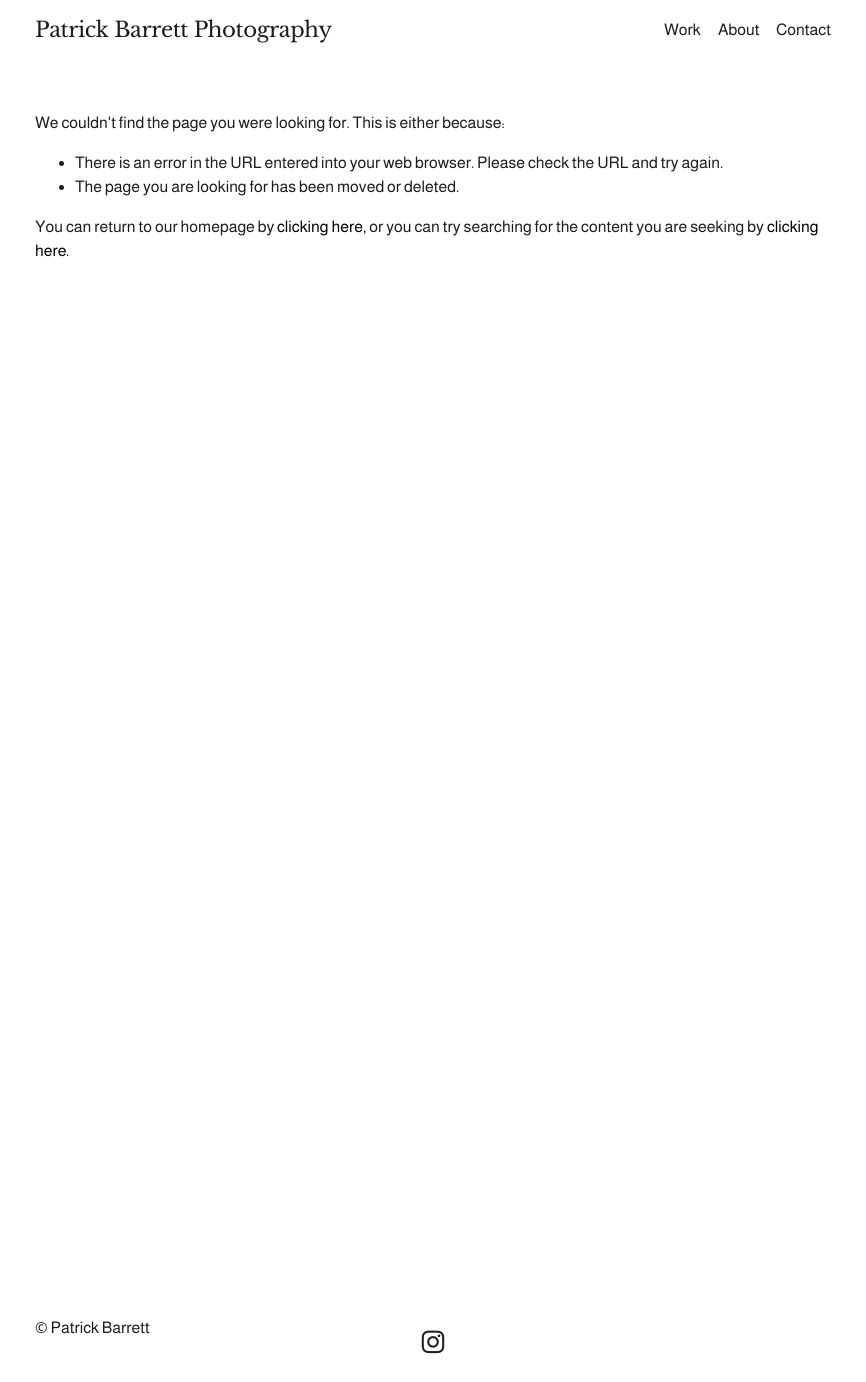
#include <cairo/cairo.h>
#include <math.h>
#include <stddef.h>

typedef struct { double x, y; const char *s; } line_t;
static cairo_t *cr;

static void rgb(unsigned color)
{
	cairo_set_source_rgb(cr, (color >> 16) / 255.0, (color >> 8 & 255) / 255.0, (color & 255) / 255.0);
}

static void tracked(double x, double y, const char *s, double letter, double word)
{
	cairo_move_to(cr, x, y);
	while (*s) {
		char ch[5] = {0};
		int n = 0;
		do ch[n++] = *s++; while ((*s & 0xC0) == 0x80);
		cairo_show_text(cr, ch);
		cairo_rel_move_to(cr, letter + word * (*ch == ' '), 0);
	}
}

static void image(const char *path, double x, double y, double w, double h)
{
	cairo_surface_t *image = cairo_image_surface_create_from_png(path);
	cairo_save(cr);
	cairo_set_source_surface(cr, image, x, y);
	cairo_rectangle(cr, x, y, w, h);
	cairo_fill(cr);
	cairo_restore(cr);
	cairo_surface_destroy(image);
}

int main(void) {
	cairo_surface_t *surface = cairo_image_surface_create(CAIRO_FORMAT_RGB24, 866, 1382);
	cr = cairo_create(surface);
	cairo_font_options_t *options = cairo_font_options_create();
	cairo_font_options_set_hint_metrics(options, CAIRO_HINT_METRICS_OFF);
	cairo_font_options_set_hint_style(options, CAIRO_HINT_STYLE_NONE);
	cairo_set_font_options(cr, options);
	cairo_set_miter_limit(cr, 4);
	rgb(0xffffff);
	cairo_paint(cr);
	rgb(0x1c1c1c);
	cairo_arc(cr, 61.5, 163.5, 2.5, 0, 2 * M_PI);
	cairo_fill(cr);
	cairo_arc(cr, 61.5, 187.5, 2.5, 0, 2 * M_PI);
	cairo_fill(cr);
	image("img/1.png", 421, 1330, 24, 24);
	cairo_select_font_face(cr, "Libre Baskerville", CAIRO_FONT_SLANT_NORMAL, CAIRO_FONT_WEIGHT_NORMAL);
	cairo_set_font_size(cr, 21.25);
	tracked(35, 37, "Patrick Barrett Photography", -0.4, 0);
	cairo_select_font_face(cr, "Almarai", CAIRO_FONT_SLANT_NORMAL, CAIRO_FONT_WEIGHT_NORMAL);
	cairo_set_font_size(cr, 16);
	{
		static const line_t items[] = {
			{664, 35, "Work"},
			{718, 35, "About"},
			{776, 35, "Contact"},
			{35, 128, "We couldn't find the page you were looking for. This is either because:"},
			{75, 168, "There is an error in the URL entered into your web browser. Please check the URL and try again."},
			{75, 192, "The page you are looking for has been moved or deleted."},
			{35, 232, "You can return to our homepage by"},
		};
		for (size_t i = 0; i < sizeof items / sizeof *items; i++) {
			cairo_move_to(cr, items[i].x, items[i].y);
			cairo_show_text(cr, items[i].s);
		}
	}
	rgb(0x000000);
	cairo_move_to(cr, 277, 232);
	cairo_show_text(cr, "clicking here");
	rgb(0x1c1c1c);
	cairo_move_to(cr, 363, 232);
	cairo_show_text(cr, ", or you can try searching for the content you are seeking by");
	rgb(0x000000);
	cairo_move_to(cr, 767, 232);
	cairo_show_text(cr, "clicking");
	cairo_move_to(cr, 35, 256);
	cairo_show_text(cr, "here");
	rgb(0x1c1c1c);
	cairo_move_to(cr, 66, 256);
	cairo_show_text(cr, ".");
	cairo_move_to(cr, 35, 1333);
	cairo_show_text(cr, "© Patrick Barrett");
	cairo_surface_write_to_png(surface, "page.png");
	cairo_font_options_destroy(options);
	cairo_destroy(cr);
	cairo_surface_destroy(surface);
	return 0;
}
